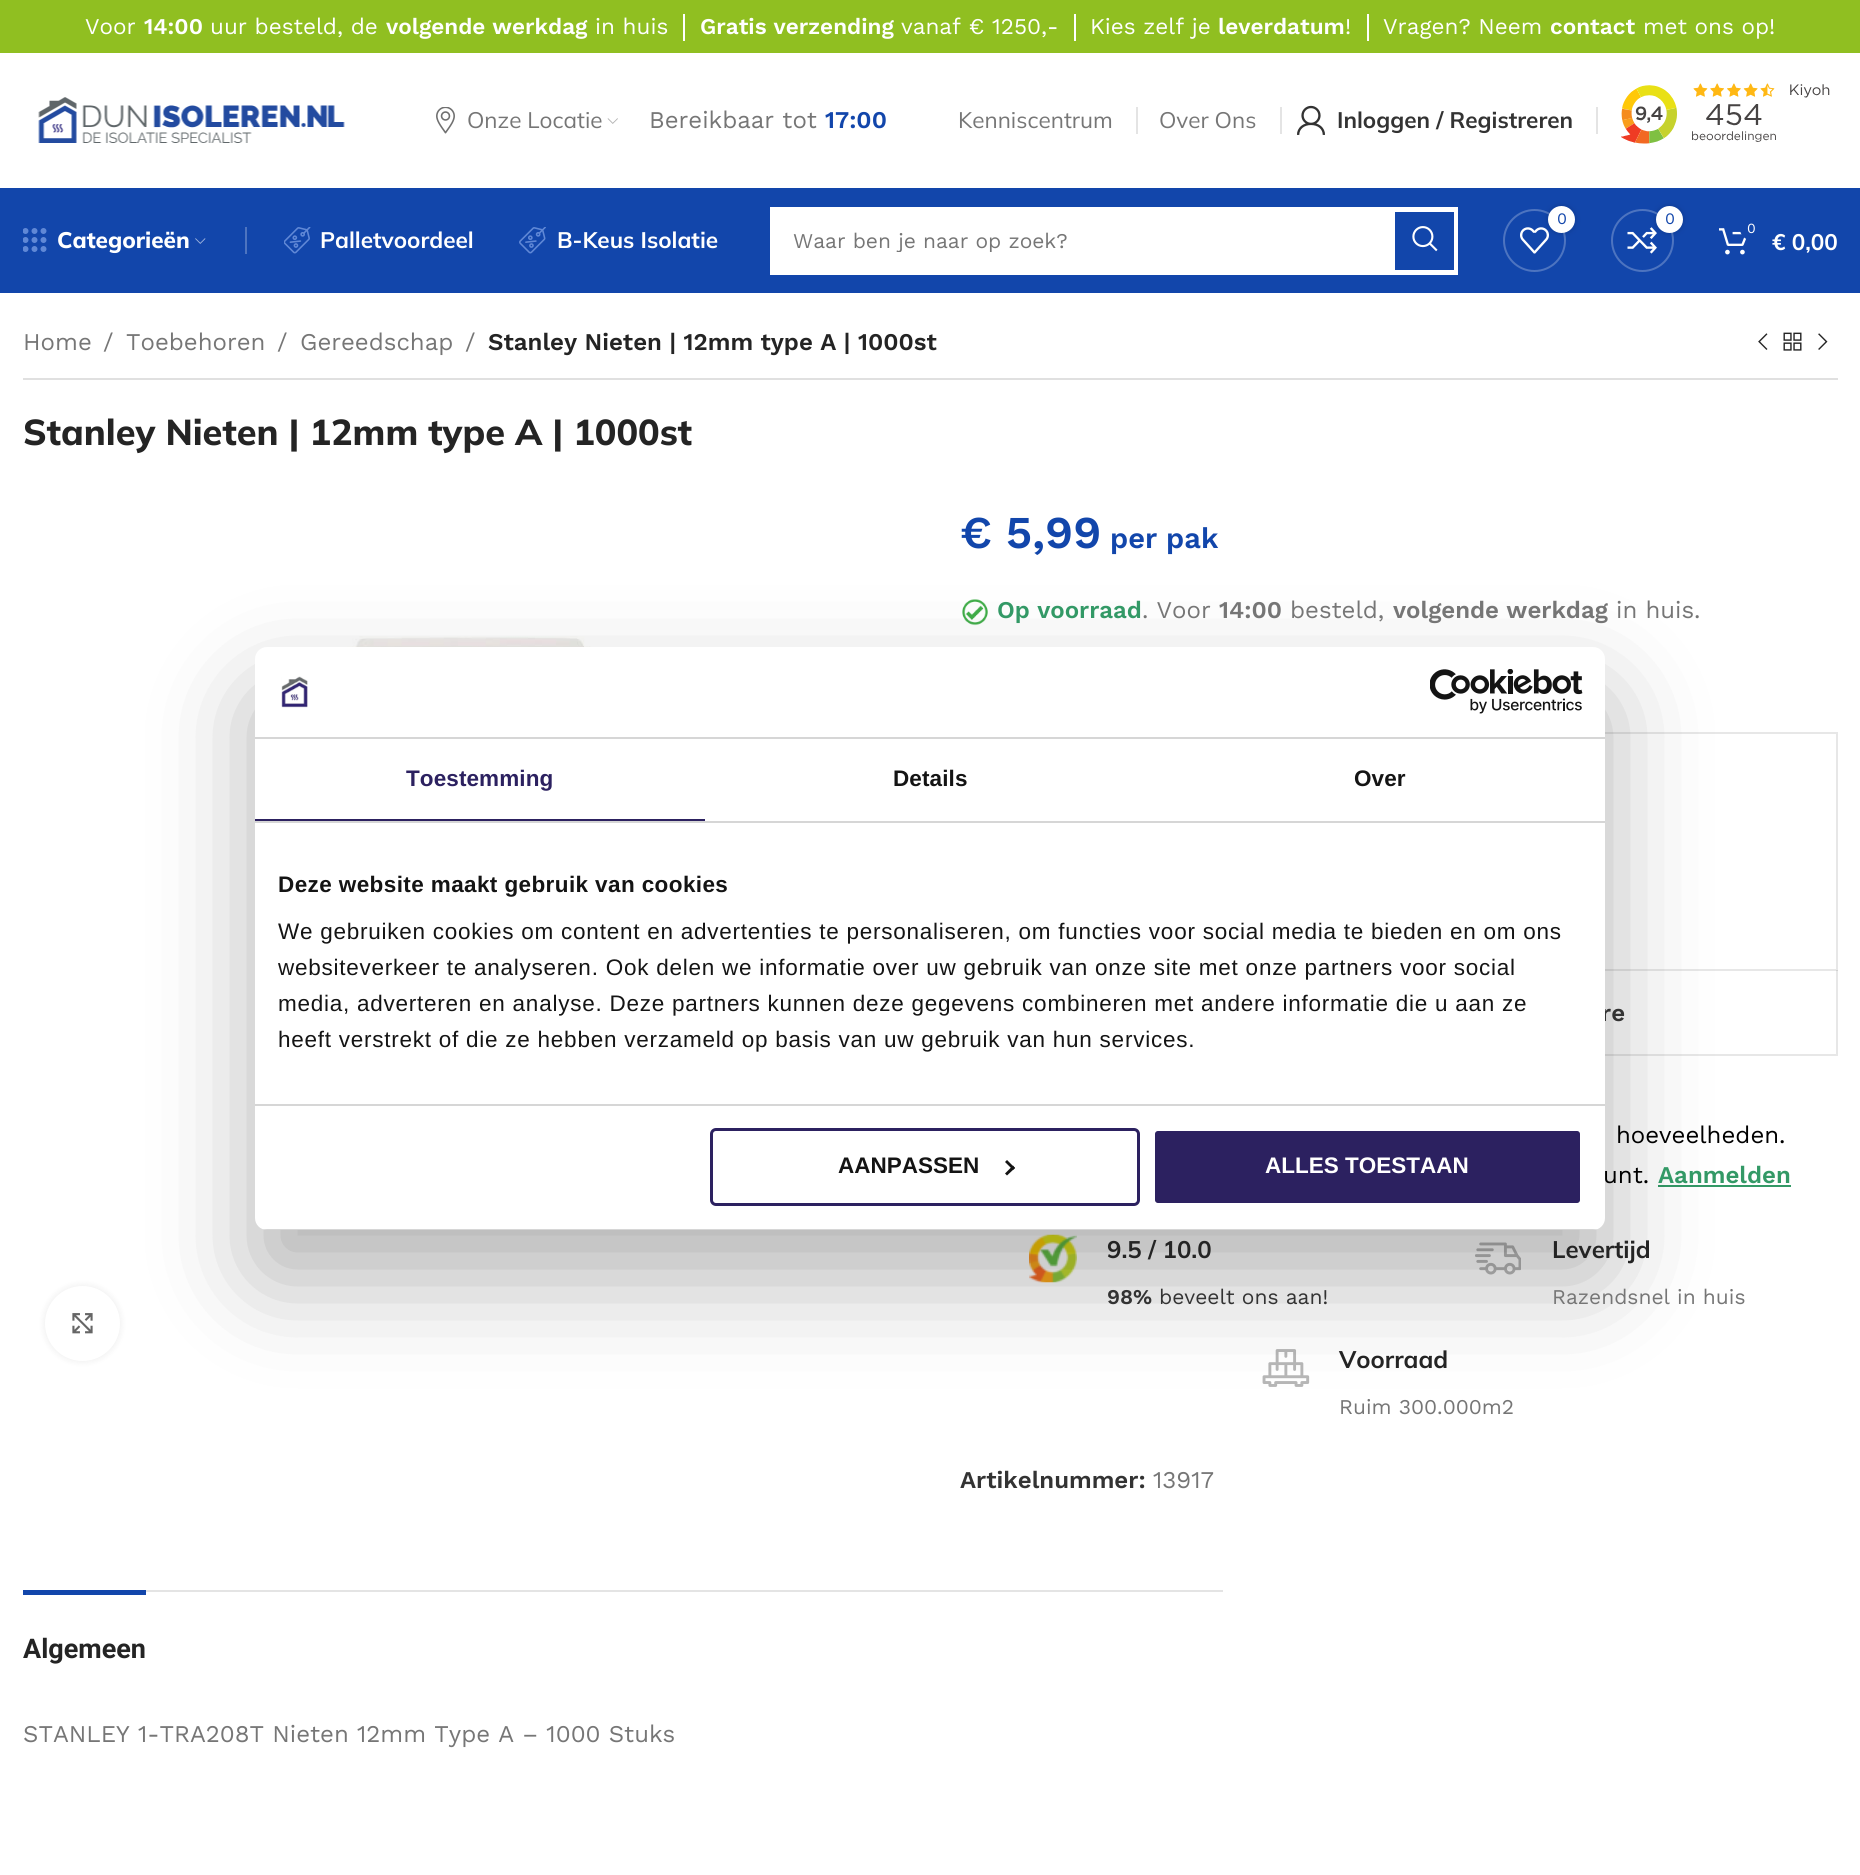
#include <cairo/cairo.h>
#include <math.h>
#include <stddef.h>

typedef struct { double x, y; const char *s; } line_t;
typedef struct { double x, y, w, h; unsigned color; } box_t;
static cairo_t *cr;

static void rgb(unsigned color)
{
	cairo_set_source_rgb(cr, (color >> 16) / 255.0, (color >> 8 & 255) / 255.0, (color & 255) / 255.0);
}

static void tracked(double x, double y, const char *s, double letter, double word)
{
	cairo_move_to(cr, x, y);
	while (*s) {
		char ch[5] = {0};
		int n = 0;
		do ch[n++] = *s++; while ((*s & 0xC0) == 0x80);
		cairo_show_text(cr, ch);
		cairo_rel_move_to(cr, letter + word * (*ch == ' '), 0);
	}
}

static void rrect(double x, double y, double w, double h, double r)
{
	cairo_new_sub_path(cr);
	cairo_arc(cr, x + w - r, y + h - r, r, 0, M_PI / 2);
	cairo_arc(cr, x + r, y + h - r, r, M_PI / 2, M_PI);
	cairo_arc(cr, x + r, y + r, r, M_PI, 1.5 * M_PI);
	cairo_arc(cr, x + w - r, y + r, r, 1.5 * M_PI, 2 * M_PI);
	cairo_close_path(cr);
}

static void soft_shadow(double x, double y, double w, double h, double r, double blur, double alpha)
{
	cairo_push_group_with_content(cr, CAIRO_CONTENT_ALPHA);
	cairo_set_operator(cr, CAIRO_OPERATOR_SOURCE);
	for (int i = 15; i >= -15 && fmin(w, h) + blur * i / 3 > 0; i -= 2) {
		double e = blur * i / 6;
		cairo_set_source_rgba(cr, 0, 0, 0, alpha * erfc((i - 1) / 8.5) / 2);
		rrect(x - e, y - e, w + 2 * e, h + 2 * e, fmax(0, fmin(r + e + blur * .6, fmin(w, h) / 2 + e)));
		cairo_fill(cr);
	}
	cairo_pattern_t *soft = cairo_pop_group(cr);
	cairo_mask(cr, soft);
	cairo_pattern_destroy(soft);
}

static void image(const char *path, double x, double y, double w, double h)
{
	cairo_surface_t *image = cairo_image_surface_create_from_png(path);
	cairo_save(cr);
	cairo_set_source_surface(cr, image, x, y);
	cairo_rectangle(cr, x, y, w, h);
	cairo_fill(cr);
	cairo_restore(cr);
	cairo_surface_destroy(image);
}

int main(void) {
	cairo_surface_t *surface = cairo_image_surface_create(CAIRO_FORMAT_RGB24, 1860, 1875);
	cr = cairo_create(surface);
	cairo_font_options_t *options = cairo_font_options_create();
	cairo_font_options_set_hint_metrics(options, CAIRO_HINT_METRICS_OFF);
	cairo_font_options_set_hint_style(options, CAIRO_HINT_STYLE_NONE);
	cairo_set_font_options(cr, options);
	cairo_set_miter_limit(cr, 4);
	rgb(0xffffff);
	cairo_paint(cr);
	{
		static const box_t items[] = {
			{0, 0, 1860, 53, 0x90bf21},
			{683, 14, 2, 27, 0xffffff},
			{1074, 14, 2, 27, 0xffffff},
			{1367, 14, 2, 27, 0xffffff},
		};
		for (size_t i = 0; i < sizeof items / sizeof *items; i++) {
			rgb(items[i].color);
			cairo_rectangle(cr, items[i].x, items[i].y, items[i].w, items[i].h);
			cairo_fill(cr);
		}
	}
	image("img/1.png", 38, 97, 307, 46);
	image("img/2.png", 436, 107, 19, 27);
	image("img/3.png", 607, 118, 11, 6);
	rgb(0xe4e4e4);
	cairo_rectangle(cr, 1136, 107, 2, 27);
	cairo_fill(cr);
	cairo_rectangle(cr, 1280, 107, 2, 27);
	cairo_fill(cr);
	image("img/4.png", 1297, 105, 28, 30);
	cairo_rectangle(cr, 1596, 107, 2, 27);
	cairo_fill(cr);
	image("img/5.png", 1621, 83, 209, 61);
	rgb(0x1246ab);
	cairo_rectangle(cr, 0, 188, 1860, 105);
	cairo_fill(cr);
	image("img/6.png", 23, 228, 24, 24);
	image("img/7.png", 195, 238, 11, 6);
	rgb(0x4d74c0);
	cairo_rectangle(cr, 245, 227, 2, 27);
	cairo_fill(cr);
	image("img/8.png", 284, 227, 27, 27);
	image("img/9.png", 519, 227, 27, 27);
	rgb(0xffffff);
	cairo_rectangle(cr, 770, 207, 688, 68);
	cairo_fill(cr);
	rgb(0x1246ab);
	cairo_rectangle(cr, 1395, 212, 59, 58);
	cairo_fill(cr);
	image("img/10.png", 1412, 226, 26, 26);
	cairo_arc(cr, 1534.5, 240.5, 30.5, 0, 2 * M_PI);
	rgb(0x4d74c0);
	cairo_stroke(cr);
	image("img/11.png", 1520, 227, 29, 27);
	rgb(0x000000);
	soft_shadow(1548, 206, 27, 27, 13.5, 3, 0.17);
	rgb(0xffffff);
	cairo_arc(cr, 1561.5, 219.5, 13.5, 0, 2 * M_PI);
	cairo_fill(cr);
	cairo_arc(cr, 1642.5, 240.5, 30.5, 0, 2 * M_PI);
	rgb(0x4d74c0);
	cairo_stroke(cr);
	image("img/12.png", 1627, 227, 30, 27);
	rgb(0x000000);
	soft_shadow(1656, 206, 27, 27, 13.5, 3, 0.17);
	rgb(0xffffff);
	cairo_arc(cr, 1669.5, 219.5, 13.5, 0, 2 * M_PI);
	cairo_fill(cr);
	image("img/13.png", 1719, 228, 28, 27);
	rgb(0x1246ab);
	rrect(1740, 218, 23, 22, 11);
	cairo_fill(cr);
	image("img/14.png", 1758, 333, 10, 17);
	image("img/15.png", 1783, 332, 19, 19);
	image("img/16.png", 1818, 333, 10, 17);
	rgb(0xe0e0e0);
	cairo_rectangle(cr, 23, 378, 1815, 2);
	cairo_fill(cr);
	image("img/17.png", 323, 636, 292, 11);
	rgb(0x000000);
	soft_shadow(45, 1286, 75, 75, 37.5, 4, 0.08);
	rgb(0xffffff);
	cairo_arc(cr, 82.5, 1323.5, 37.5, 0, 2 * M_PI);
	cairo_fill(cr);
	image("img/18.png", 72, 1313, 21, 21);
	image("img/19.png", 962, 599, 26, 27);
	cairo_rectangle(cr, 961, 733, 876, 237);
	rgb(0xe7e7e7);
	cairo_stroke(cr);
	cairo_set_source_rgba(cr, 0.063, 0.063, 0.063, 0.1);
	cairo_new_path(cr);
	cairo_move_to(cr, 1838, 970);
	cairo_line_to(cr, 1838, 1056);
	cairo_line_to(cr, 1836, 1054);
	cairo_line_to(cr, 1836, 970);
	cairo_close_path(cr);
	cairo_fill(cr);
	cairo_new_path(cr);
	cairo_move_to(cr, 1838, 1056);
	cairo_line_to(cr, 960, 1056);
	cairo_line_to(cr, 962, 1054);
	cairo_line_to(cr, 1836, 1054);
	cairo_close_path(cr);
	cairo_fill(cr);
	rgb(0x339966);
	cairo_rectangle(cr, 1658, 1185, 133, 2);
	cairo_fill(cr);
	image("img/20.png", 1029, 1234, 48, 49);
	image("img/21.png", 1475, 1242, 46, 33);
	image("img/22.png", 1262, 1349, 48, 38);
	rgb(0xe4e4e4);
	cairo_rectangle(cr, 146, 1590, 1077, 2);
	cairo_fill(cr);
	rgb(0x1246ab);
	cairo_rectangle(cr, 23, 1590, 123, 5);
	cairo_fill(cr);
	rgb(0x000000);
	soft_shadow(255, 695, 1350, 583, 12, 51, 0.3);
	cairo_select_font_face(cr, "Work Sans", CAIRO_FONT_SLANT_NORMAL, CAIRO_FONT_WEIGHT_NORMAL);
	cairo_set_font_size(cr, 22.5);
	rgb(0xffffff);
	cairo_move_to(cr, 85, 34);
	cairo_show_text(cr, "Voor");
	cairo_select_font_face(cr, "Work Sans SemiBold", CAIRO_FONT_SLANT_NORMAL, CAIRO_FONT_WEIGHT_NORMAL);
	cairo_move_to(cr, 144, 34);
	cairo_show_text(cr, "14:00");
	cairo_select_font_face(cr, "Work Sans", CAIRO_FONT_SLANT_NORMAL, CAIRO_FONT_WEIGHT_NORMAL);
	cairo_move_to(cr, 210, 34);
	cairo_show_text(cr, "uur besteld, de");
	cairo_select_font_face(cr, "Work Sans SemiBold", CAIRO_FONT_SLANT_NORMAL, CAIRO_FONT_WEIGHT_NORMAL);
	cairo_move_to(cr, 386, 34);
	cairo_show_text(cr, "volgende werkdag");
	cairo_select_font_face(cr, "Work Sans", CAIRO_FONT_SLANT_NORMAL, CAIRO_FONT_WEIGHT_NORMAL);
	cairo_move_to(cr, 595, 34);
	cairo_show_text(cr, "in huis");
	cairo_select_font_face(cr, "Work Sans SemiBold", CAIRO_FONT_SLANT_NORMAL, CAIRO_FONT_WEIGHT_NORMAL);
	cairo_move_to(cr, 700, 34);
	cairo_show_text(cr, "Gratis verzending");
	cairo_select_font_face(cr, "Work Sans", CAIRO_FONT_SLANT_NORMAL, CAIRO_FONT_WEIGHT_NORMAL);
	cairo_move_to(cr, 901, 34);
	cairo_show_text(cr, "vanaf € 1250,-");
	cairo_move_to(cr, 1090, 34);
	cairo_show_text(cr, "Kies zelf je");
	cairo_select_font_face(cr, "Work Sans SemiBold", CAIRO_FONT_SLANT_NORMAL, CAIRO_FONT_WEIGHT_NORMAL);
	cairo_move_to(cr, 1218, 34);
	cairo_show_text(cr, "leverdatum");
	cairo_select_font_face(cr, "Work Sans", CAIRO_FONT_SLANT_NORMAL, CAIRO_FONT_WEIGHT_NORMAL);
	cairo_move_to(cr, 1345, 34);
	cairo_show_text(cr, "!");
	cairo_move_to(cr, 1383, 34);
	cairo_show_text(cr, "Vragen? Neem");
	cairo_select_font_face(cr, "Work Sans SemiBold", CAIRO_FONT_SLANT_NORMAL, CAIRO_FONT_WEIGHT_NORMAL);
	cairo_move_to(cr, 1550, 34);
	cairo_show_text(cr, "contact");
	cairo_select_font_face(cr, "Work Sans", CAIRO_FONT_SLANT_NORMAL, CAIRO_FONT_WEIGHT_NORMAL);
	cairo_move_to(cr, 1643, 34);
	cairo_show_text(cr, "met ons op!");
	cairo_select_font_face(cr, "Mulish", CAIRO_FONT_SLANT_NORMAL, CAIRO_FONT_WEIGHT_NORMAL);
	rgb(0x767676);
	cairo_move_to(cr, 467, 128);
	cairo_show_text(cr, "Onze Locatie");
	cairo_select_font_face(cr, "Work Sans", CAIRO_FONT_SLANT_NORMAL, CAIRO_FONT_WEIGHT_NORMAL);
	cairo_set_font_size(cr, 24);
	cairo_move_to(cr, 649, 128);
	cairo_show_text(cr, "Bereikbaar tot");
	cairo_select_font_face(cr, "Work Sans SemiBold", CAIRO_FONT_SLANT_NORMAL, CAIRO_FONT_WEIGHT_NORMAL);
	rgb(0x1246ab);
	cairo_move_to(cr, 825, 128);
	cairo_show_text(cr, "17:00");
	cairo_select_font_face(cr, "Mulish", CAIRO_FONT_SLANT_NORMAL, CAIRO_FONT_WEIGHT_NORMAL);
	cairo_set_font_size(cr, 22.5);
	rgb(0x767676);
	cairo_move_to(cr, 958, 128);
	cairo_show_text(cr, "Kenniscentrum");
	cairo_move_to(cr, 1159, 128);
	cairo_show_text(cr, "Over Ons");
	cairo_select_font_face(cr, "Mulish", CAIRO_FONT_SLANT_NORMAL, CAIRO_FONT_WEIGHT_BOLD);
	rgb(0x333333);
	cairo_move_to(cr, 1337, 128);
	cairo_show_text(cr, "Inloggen / Registreren");
	cairo_select_font_face(cr, "Mulish ExtraBold", CAIRO_FONT_SLANT_NORMAL, CAIRO_FONT_WEIGHT_NORMAL);
	rgb(0xffffff);
	cairo_move_to(cr, 57, 248);
	cairo_show_text(cr, "Categorieën");
	cairo_select_font_face(cr, "Mulish", CAIRO_FONT_SLANT_NORMAL, CAIRO_FONT_WEIGHT_BOLD);
	cairo_move_to(cr, 320, 248);
	cairo_show_text(cr, "Palletvoordeel");
	cairo_move_to(cr, 557, 248);
	cairo_show_text(cr, "B-Keus Isolatie");
	cairo_save(cr);
	cairo_rectangle(cr, 792, 228, 554, 24);
	cairo_clip(cr);
	cairo_select_font_face(cr, "Work Sans", CAIRO_FONT_SLANT_NORMAL, CAIRO_FONT_WEIGHT_NORMAL);
	cairo_set_font_size(cr, 21);
	rgb(0x767676);
	cairo_move_to(cr, 793, 248);
	cairo_show_text(cr, "Waar ben je naar op zoek?");
	cairo_restore(cr);
	cairo_select_font_face(cr, "Work Sans", CAIRO_FONT_SLANT_NORMAL, CAIRO_FONT_WEIGHT_NORMAL);
	cairo_set_font_size(cr, 16);
	rgb(0x1246ab);
	cairo_move_to(cr, 1557, 224);
	cairo_show_text(cr, "0");
	cairo_move_to(cr, 1665, 224);
	cairo_show_text(cr, "0");
	cairo_set_font_size(cr, 14);
	rgb(0xffffff);
	cairo_move_to(cr, 1747, 233);
	cairo_show_text(cr, "0");
	cairo_select_font_face(cr, "Mulish", CAIRO_FONT_SLANT_NORMAL, CAIRO_FONT_WEIGHT_BOLD);
	cairo_set_font_size(cr, 22.5);
	cairo_move_to(cr, 1772, 250);
	cairo_show_text(cr, "€ 0,00");
	cairo_select_font_face(cr, "Work Sans", CAIRO_FONT_SLANT_NORMAL, CAIRO_FONT_WEIGHT_NORMAL);
	cairo_set_font_size(cr, 24);
	rgb(0x767676);
	{
		static const line_t items[] = {
			{23, 350, "Home"},
			{103, 350, "/"},
			{126, 350, "Toebehoren"},
			{277, 350, "/"},
			{300, 350, "Gereedschap"},
			{465, 350, "/"},
		};
		for (size_t i = 0; i < sizeof items / sizeof *items; i++) {
			cairo_move_to(cr, items[i].x, items[i].y);
			cairo_show_text(cr, items[i].s);
		}
	}
	cairo_select_font_face(cr, "Work Sans SemiBold", CAIRO_FONT_SLANT_NORMAL, CAIRO_FONT_WEIGHT_NORMAL);
	rgb(0x242424);
	cairo_move_to(cr, 488, 350);
	cairo_show_text(cr, "Stanley Nieten | 12mm type A | 1000st");
	cairo_select_font_face(cr, "Mulish ExtraBold", CAIRO_FONT_SLANT_NORMAL, CAIRO_FONT_WEIGHT_NORMAL);
	cairo_set_font_size(cr, 36);
	cairo_move_to(cr, 23, 445);
	cairo_show_text(cr, "Stanley Nieten | 12mm type A | 1000st");
	cairo_select_font_face(cr, "Work Sans SemiBold", CAIRO_FONT_SLANT_NORMAL, CAIRO_FONT_WEIGHT_NORMAL);
	cairo_set_font_size(cr, 45.5);
	rgb(0x1246ab);
	cairo_move_to(cr, 960, 548);
	cairo_show_text(cr, "€ 5,99");
	cairo_set_font_size(cr, 29);
	cairo_move_to(cr, 1110, 548);
	cairo_show_text(cr, "per pak");
	cairo_set_font_size(cr, 24);
	rgb(0x339966);
	cairo_move_to(cr, 997, 618);
	cairo_show_text(cr, "Op voorraad");
	cairo_select_font_face(cr, "Work Sans", CAIRO_FONT_SLANT_NORMAL, CAIRO_FONT_WEIGHT_NORMAL);
	rgb(0x767676);
	cairo_move_to(cr, 1142, 618);
	cairo_show_text(cr, ". Voor");
	cairo_select_font_face(cr, "Work Sans SemiBold", CAIRO_FONT_SLANT_NORMAL, CAIRO_FONT_WEIGHT_NORMAL);
	cairo_move_to(cr, 1219, 618);
	cairo_show_text(cr, "14:00");
	cairo_select_font_face(cr, "Work Sans", CAIRO_FONT_SLANT_NORMAL, CAIRO_FONT_WEIGHT_NORMAL);
	cairo_move_to(cr, 1290, 618);
	cairo_show_text(cr, "besteld,");
	cairo_select_font_face(cr, "Work Sans SemiBold", CAIRO_FONT_SLANT_NORMAL, CAIRO_FONT_WEIGHT_NORMAL);
	cairo_move_to(cr, 1393, 618);
	cairo_show_text(cr, "volgende werkdag");
	cairo_select_font_face(cr, "Work Sans", CAIRO_FONT_SLANT_NORMAL, CAIRO_FONT_WEIGHT_NORMAL);
	cairo_move_to(cr, 1616, 618);
	cairo_show_text(cr, "in huis.");
	cairo_select_font_face(cr, "Work Sans SemiBold", CAIRO_FONT_SLANT_NORMAL, CAIRO_FONT_WEIGHT_NORMAL);
	rgb(0x333333);
	cairo_move_to(cr, 1601, 1021);
	cairo_show_text(cr, "re");
	cairo_select_font_face(cr, "Work Sans", CAIRO_FONT_SLANT_NORMAL, CAIRO_FONT_WEIGHT_NORMAL);
	rgb(0x000000);
	cairo_move_to(cr, 1616, 1143);
	cairo_show_text(cr, "hoeveelheden.");
	cairo_move_to(cr, 1603, 1183);
	cairo_show_text(cr, "unt.");
	cairo_select_font_face(cr, "Work Sans SemiBold", CAIRO_FONT_SLANT_NORMAL, CAIRO_FONT_WEIGHT_NORMAL);
	rgb(0x339966);
	cairo_move_to(cr, 1658, 1183);
	cairo_show_text(cr, "Aanmelden");
	cairo_select_font_face(cr, "Mulish", CAIRO_FONT_SLANT_NORMAL, CAIRO_FONT_WEIGHT_BOLD);
	rgb(0x242424);
	cairo_move_to(cr, 1107, 1258);
	cairo_show_text(cr, "9.5 / 10.0");
	cairo_select_font_face(cr, "Work Sans SemiBold", CAIRO_FONT_SLANT_NORMAL, CAIRO_FONT_WEIGHT_NORMAL);
	cairo_set_font_size(cr, 21);
	rgb(0x333333);
	cairo_move_to(cr, 1107, 1304);
	cairo_show_text(cr, "98%");
	cairo_select_font_face(cr, "Work Sans", CAIRO_FONT_SLANT_NORMAL, CAIRO_FONT_WEIGHT_NORMAL);
	cairo_move_to(cr, 1159, 1304);
	cairo_show_text(cr, "beveelt ons aan!");
	cairo_select_font_face(cr, "Mulish", CAIRO_FONT_SLANT_NORMAL, CAIRO_FONT_WEIGHT_BOLD);
	cairo_set_font_size(cr, 24);
	rgb(0x242424);
	cairo_move_to(cr, 1552, 1258);
	cairo_show_text(cr, "Levertijd");
	cairo_select_font_face(cr, "Work Sans", CAIRO_FONT_SLANT_NORMAL, CAIRO_FONT_WEIGHT_NORMAL);
	cairo_set_font_size(cr, 21);
	rgb(0x767676);
	cairo_move_to(cr, 1552, 1304);
	cairo_show_text(cr, "Razendsnel in huis");
	cairo_select_font_face(cr, "Mulish", CAIRO_FONT_SLANT_NORMAL, CAIRO_FONT_WEIGHT_BOLD);
	cairo_set_font_size(cr, 24);
	rgb(0x242424);
	cairo_move_to(cr, 1339, 1368);
	cairo_show_text(cr, "Voorraad");
	cairo_select_font_face(cr, "Work Sans", CAIRO_FONT_SLANT_NORMAL, CAIRO_FONT_WEIGHT_NORMAL);
	cairo_set_font_size(cr, 21);
	rgb(0x767676);
	cairo_move_to(cr, 1339, 1414);
	cairo_show_text(cr, "Ruim 300.000m2");
	cairo_select_font_face(cr, "Work Sans SemiBold", CAIRO_FONT_SLANT_NORMAL, CAIRO_FONT_WEIGHT_NORMAL);
	cairo_set_font_size(cr, 24);
	rgb(0x333333);
	cairo_move_to(cr, 960, 1488);
	cairo_show_text(cr, "Artikelnummer:");
	cairo_select_font_face(cr, "Work Sans", CAIRO_FONT_SLANT_NORMAL, CAIRO_FONT_WEIGHT_NORMAL);
	rgb(0x767676);
	cairo_move_to(cr, 1153, 1488);
	cairo_show_text(cr, "13917");
	cairo_select_font_face(cr, "Roboto", CAIRO_FONT_SLANT_NORMAL, CAIRO_FONT_WEIGHT_BOLD);
	cairo_set_font_size(cr, 27);
	rgb(0x242424);
	cairo_move_to(cr, 23, 1658);
	cairo_show_text(cr, "Algemeen");
	cairo_select_font_face(cr, "Work Sans", CAIRO_FONT_SLANT_NORMAL, CAIRO_FONT_WEIGHT_NORMAL);
	cairo_set_font_size(cr, 24);
	rgb(0x767676);
	cairo_move_to(cr, 23, 1742);
	cairo_show_text(cr, "STANLEY 1-TRA208T Nieten 12mm Type A – 1000 Stuks");
	rgb(0xffffff);
	rrect(255, 647, 1350, 583, 12);
	cairo_fill(cr);
	rgb(0xd6d6d6);
	cairo_rectangle(cr, 255, 737, 1350, 2);
	cairo_fill(cr);
	image("img/23.png", 281, 676, 27, 32);
	image("img/24.png", 1430, 669, 153, 45);
	cairo_rectangle(cr, 255, 821, 1350, 2);
	cairo_fill(cr);
	rgb(0x2c2160);
	cairo_rectangle(cr, 255, 819, 450, 2);
	cairo_fill(cr);
	cairo_select_font_face(cr, "Liberation Sans", CAIRO_FONT_SLANT_NORMAL, CAIRO_FONT_WEIGHT_BOLD);
	cairo_set_font_size(cr, 22.5);
	tracked(406, 786, "Toestemming", 0.1, 0);
	rgb(0x141414);
	tracked(893, 786, "Details", 0.1, 0);
	tracked(1354, 786, "Over", 0.1, 0);
	rgb(0xd6d6d6);
	cairo_rectangle(cr, 255, 1104, 1350, 2);
	cairo_fill(cr);
	rgb(0x141414);
	tracked(278, 892, "Deze website maakt gebruik van cookies", 0.4, 0);
	cairo_select_font_face(cr, "Liberation Sans", CAIRO_FONT_SLANT_NORMAL, CAIRO_FONT_WEIGHT_NORMAL);
	{
		static const line_t items[] = {
			{278, 939, "We gebruiken cookies om content en advertenties te personaliseren, om functies voor social media te bieden en om ons"},
			{278, 975, "websiteverkeer te analyseren. Ook delen we informatie over uw gebruik van onze site met onze partners voor social"},
			{278, 1011, "media, adverteren en analyse. Deze partners kunnen deze gegevens combineren met andere informatie die u aan ze"},
			{278, 1047, "heeft verstrekt of die ze hebben verzameld op basis van uw gebruik van hun services."},
		};
		for (size_t i = 0; i < sizeof items / sizeof *items; i++) {
			tracked(items[i].x, items[i].y, items[i].s, 0.75, 0);
		}
	}
	cairo_save(cr);
	rrect(255, 647, 1350, 583, 12);
	cairo_clip(cr);
	rgb(0xd6d6d6);
	cairo_rectangle(cr, 255, 1229, 1350, 1);
	cairo_fill(cr);
	cairo_restore(cr);
	rrect(711.5, 1129.5, 427, 75, 4.5);
	rgb(0x2c2160);
	cairo_set_line_width(cr, 3);
	cairo_stroke(cr);
	cairo_select_font_face(cr, "Liberation Sans", CAIRO_FONT_SLANT_NORMAL, CAIRO_FONT_WEIGHT_BOLD);
	rgb(0x141414);
	cairo_move_to(cr, 838, 1173);
	cairo_show_text(cr, "AANPASSEN");
	cairo_new_path(cr);
	cairo_move_to(cr, 1007, 1160);
	cairo_line_to(cr, 1015, 1168);
	cairo_line_to(cr, 1013, 1170);
	cairo_line_to(cr, 1005, 1162);
	cairo_close_path(cr);
	cairo_fill(cr);
	cairo_new_path(cr);
	cairo_move_to(cr, 1013, 1165.5);
	cairo_line_to(cr, 1015, 1168);
	cairo_line_to(cr, 1007, 1175.5);
	cairo_line_to(cr, 1005, 1173.5);
	cairo_close_path(cr);
	cairo_fill(cr);
	rgb(0x2c2160);
	rrect(1153.5, 1129.5, 428, 75, 4.5);
	cairo_fill_preserve(cr);
	rgb(0xffffff);
	cairo_stroke(cr);
	cairo_move_to(cr, 1265, 1173);
	cairo_show_text(cr, "ALLES TOESTAAN");
	cairo_surface_write_to_png(surface, "page.png");
	cairo_font_options_destroy(options);
	cairo_destroy(cr);
	cairo_surface_destroy(surface);
	return 0;
}
